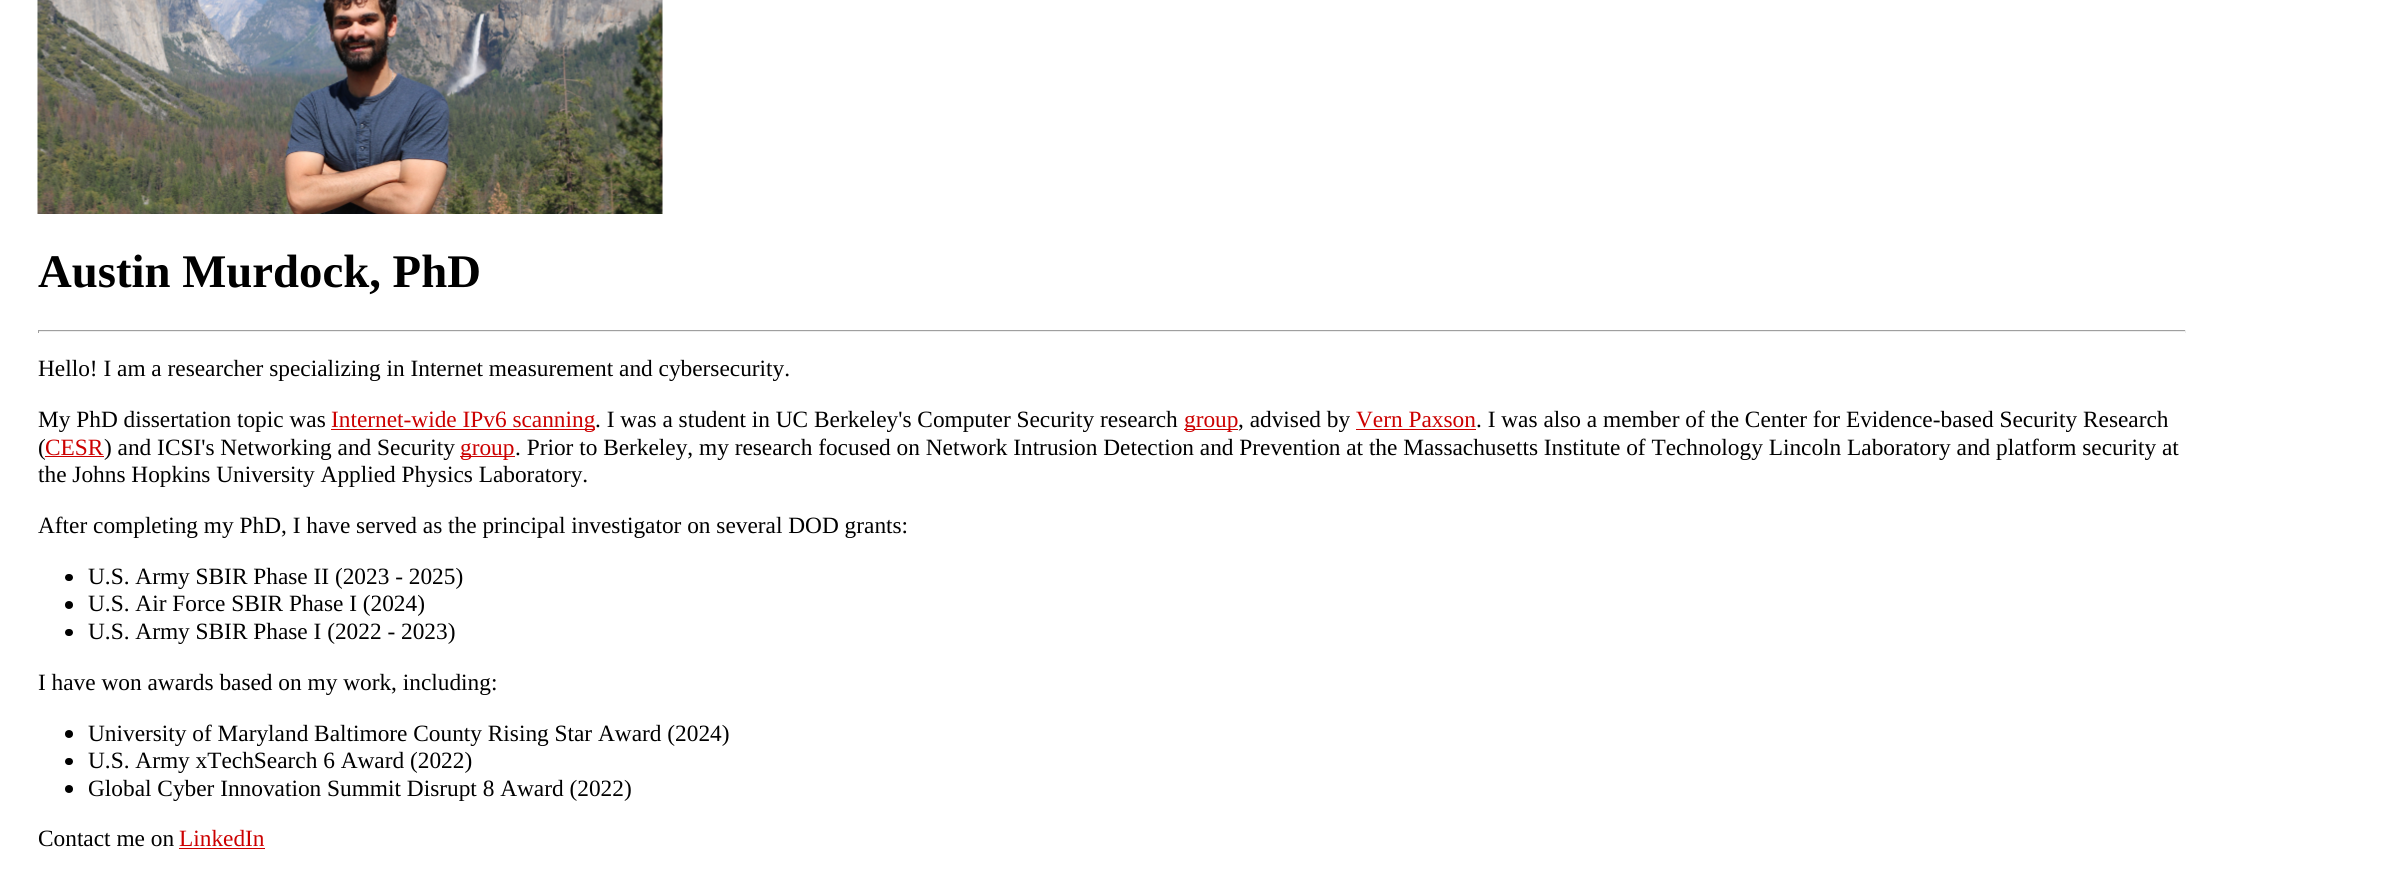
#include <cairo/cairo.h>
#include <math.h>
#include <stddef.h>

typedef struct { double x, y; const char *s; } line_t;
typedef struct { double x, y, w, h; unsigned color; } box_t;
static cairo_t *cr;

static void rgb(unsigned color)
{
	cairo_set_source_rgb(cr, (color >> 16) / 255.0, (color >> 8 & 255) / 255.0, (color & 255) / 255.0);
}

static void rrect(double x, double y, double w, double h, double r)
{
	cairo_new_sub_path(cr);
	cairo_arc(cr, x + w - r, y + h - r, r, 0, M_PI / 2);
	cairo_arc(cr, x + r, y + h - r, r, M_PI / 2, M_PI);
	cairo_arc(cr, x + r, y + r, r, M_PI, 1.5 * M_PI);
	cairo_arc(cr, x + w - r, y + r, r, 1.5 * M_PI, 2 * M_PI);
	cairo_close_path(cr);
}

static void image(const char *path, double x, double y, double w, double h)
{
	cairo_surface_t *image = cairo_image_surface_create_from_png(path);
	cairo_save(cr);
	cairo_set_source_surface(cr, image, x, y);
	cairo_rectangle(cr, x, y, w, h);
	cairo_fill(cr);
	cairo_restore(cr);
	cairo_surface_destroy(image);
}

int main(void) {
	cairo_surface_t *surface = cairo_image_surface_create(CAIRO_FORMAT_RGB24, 2384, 884);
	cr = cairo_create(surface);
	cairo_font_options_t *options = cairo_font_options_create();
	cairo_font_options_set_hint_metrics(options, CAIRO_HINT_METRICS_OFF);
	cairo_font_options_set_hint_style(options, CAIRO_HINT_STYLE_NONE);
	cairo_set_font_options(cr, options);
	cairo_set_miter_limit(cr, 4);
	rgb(0xffffff);
	cairo_paint(cr);
	image("img/1.png", 37, 0, 626, 214);
	{
		static const box_t items[] = {
			{38, 330, 2148, 1, 0x9f9f9f},
			{2185, 330, 1, 3, 0xeeeeee},
			{38, 331, 2148, 1, 0xeeeeee},
			{38, 330, 1, 3, 0x9f9f9f},
			{331, 429, 264, 1, 0xcc0000},
			{1184, 429, 54, 1, 0xcc0000},
			{1356, 429, 120, 1, 0xcc0000},
			{45, 456, 59, 1, 0xcc0000},
			{460, 456, 55, 1, 0xcc0000},
		};
		for (size_t i = 0; i < sizeof items / sizeof *items; i++) {
			rgb(items[i].color);
			cairo_rectangle(cr, items[i].x, items[i].y, items[i].w, items[i].h);
			cairo_fill(cr);
		}
	}
	rgb(0x000000);
	rrect(65, 574, 8, 7, 3.5);
	cairo_fill(cr);
	cairo_arc(cr, 69, 605, 4, 0, 2 * M_PI);
	cairo_fill(cr);
	rrect(65, 629, 8, 7, 3.5);
	cairo_fill(cr);
	cairo_arc(cr, 69, 734, 4, 0, 2 * M_PI);
	cairo_fill(cr);
	rrect(65, 758, 8, 7, 3.5);
	cairo_fill(cr);
	cairo_arc(cr, 69, 789, 4, 0, 2 * M_PI);
	cairo_fill(cr);
	rgb(0xcc0000);
	cairo_rectangle(cr, 179, 848, 86, 1);
	cairo_fill(cr);
	cairo_select_font_face(cr, "Liberation Serif", CAIRO_FONT_SLANT_NORMAL, CAIRO_FONT_WEIGHT_BOLD);
	cairo_set_font_size(cr, 46.75);
	rgb(0x000000);
	cairo_move_to(cr, 38, 287);
	cairo_show_text(cr, "Austin Murdock, PhD");
	cairo_select_font_face(cr, "Liberation Serif", CAIRO_FONT_SLANT_NORMAL, CAIRO_FONT_WEIGHT_NORMAL);
	cairo_set_font_size(cr, 23.33);
	cairo_move_to(cr, 38, 376);
	cairo_show_text(cr, "Hello! I am a researcher specializing in Internet measurement and cybersecurity.");
	cairo_move_to(cr, 38, 427);
	cairo_show_text(cr, "My PhD dissertation topic was");
	rgb(0xcc0000);
	cairo_move_to(cr, 331, 427);
	cairo_show_text(cr, "Internet-wide IPv6 scanning");
	rgb(0x000000);
	cairo_move_to(cr, 595, 427);
	cairo_show_text(cr, ". I was a student in UC Berkeley's Computer Security research");
	rgb(0xcc0000);
	cairo_move_to(cr, 1184, 427);
	cairo_show_text(cr, "group");
	rgb(0x000000);
	cairo_move_to(cr, 1238, 427);
	cairo_show_text(cr, ", advised by");
	rgb(0xcc0000);
	cairo_move_to(cr, 1356, 427);
	cairo_show_text(cr, "Vern Paxson");
	rgb(0x000000);
	cairo_move_to(cr, 1476, 427);
	cairo_show_text(cr, ". I was also a member of the Center for Evidence-based Security Research");
	cairo_move_to(cr, 38, 455);
	cairo_show_text(cr, "(");
	rgb(0xcc0000);
	cairo_move_to(cr, 45, 455);
	cairo_show_text(cr, "CESR");
	rgb(0x000000);
	cairo_move_to(cr, 104, 455);
	cairo_show_text(cr, ") and ICSI's Networking and Security");
	rgb(0xcc0000);
	cairo_move_to(cr, 460, 455);
	cairo_show_text(cr, "group");
	rgb(0x000000);
	{
		static const line_t items[] = {
			{515, 455, ". Prior to Berkeley, my research focused on Network Intrusion Detection and Prevention at the Massachusetts Institute of Technology Lincoln Laboratory and platform security at"},
			{38, 482, "the Johns Hopkins University Applied Physics Laboratory."},
			{38, 533, "After completing my PhD, I have served as the principal investigator on several DOD grants:"},
			{88, 584, "U.S. Army SBIR Phase II (2023 - 2025)"},
			{88, 611, "U.S. Air Force SBIR Phase I (2024)"},
			{88, 639, "U.S. Army SBIR Phase I (2022 - 2023)"},
			{38, 690, "I have won awards based on my work, including:"},
			{88, 741, "University of Maryland Baltimore County Rising Star Award (2024)"},
			{88, 768, "U.S. Army xTechSearch 6 Award (2022)"},
			{88, 796, "Global Cyber Innovation Summit Disrupt 8 Award (2022)"},
			{38, 846, "Contact me on"},
		};
		for (size_t i = 0; i < sizeof items / sizeof *items; i++) {
			cairo_move_to(cr, items[i].x, items[i].y);
			cairo_show_text(cr, items[i].s);
		}
	}
	rgb(0xcc0000);
	cairo_move_to(cr, 179, 846);
	cairo_show_text(cr, "LinkedIn");
	cairo_surface_write_to_png(surface, "page.png");
	cairo_font_options_destroy(options);
	cairo_destroy(cr);
	cairo_surface_destroy(surface);
	return 0;
}
